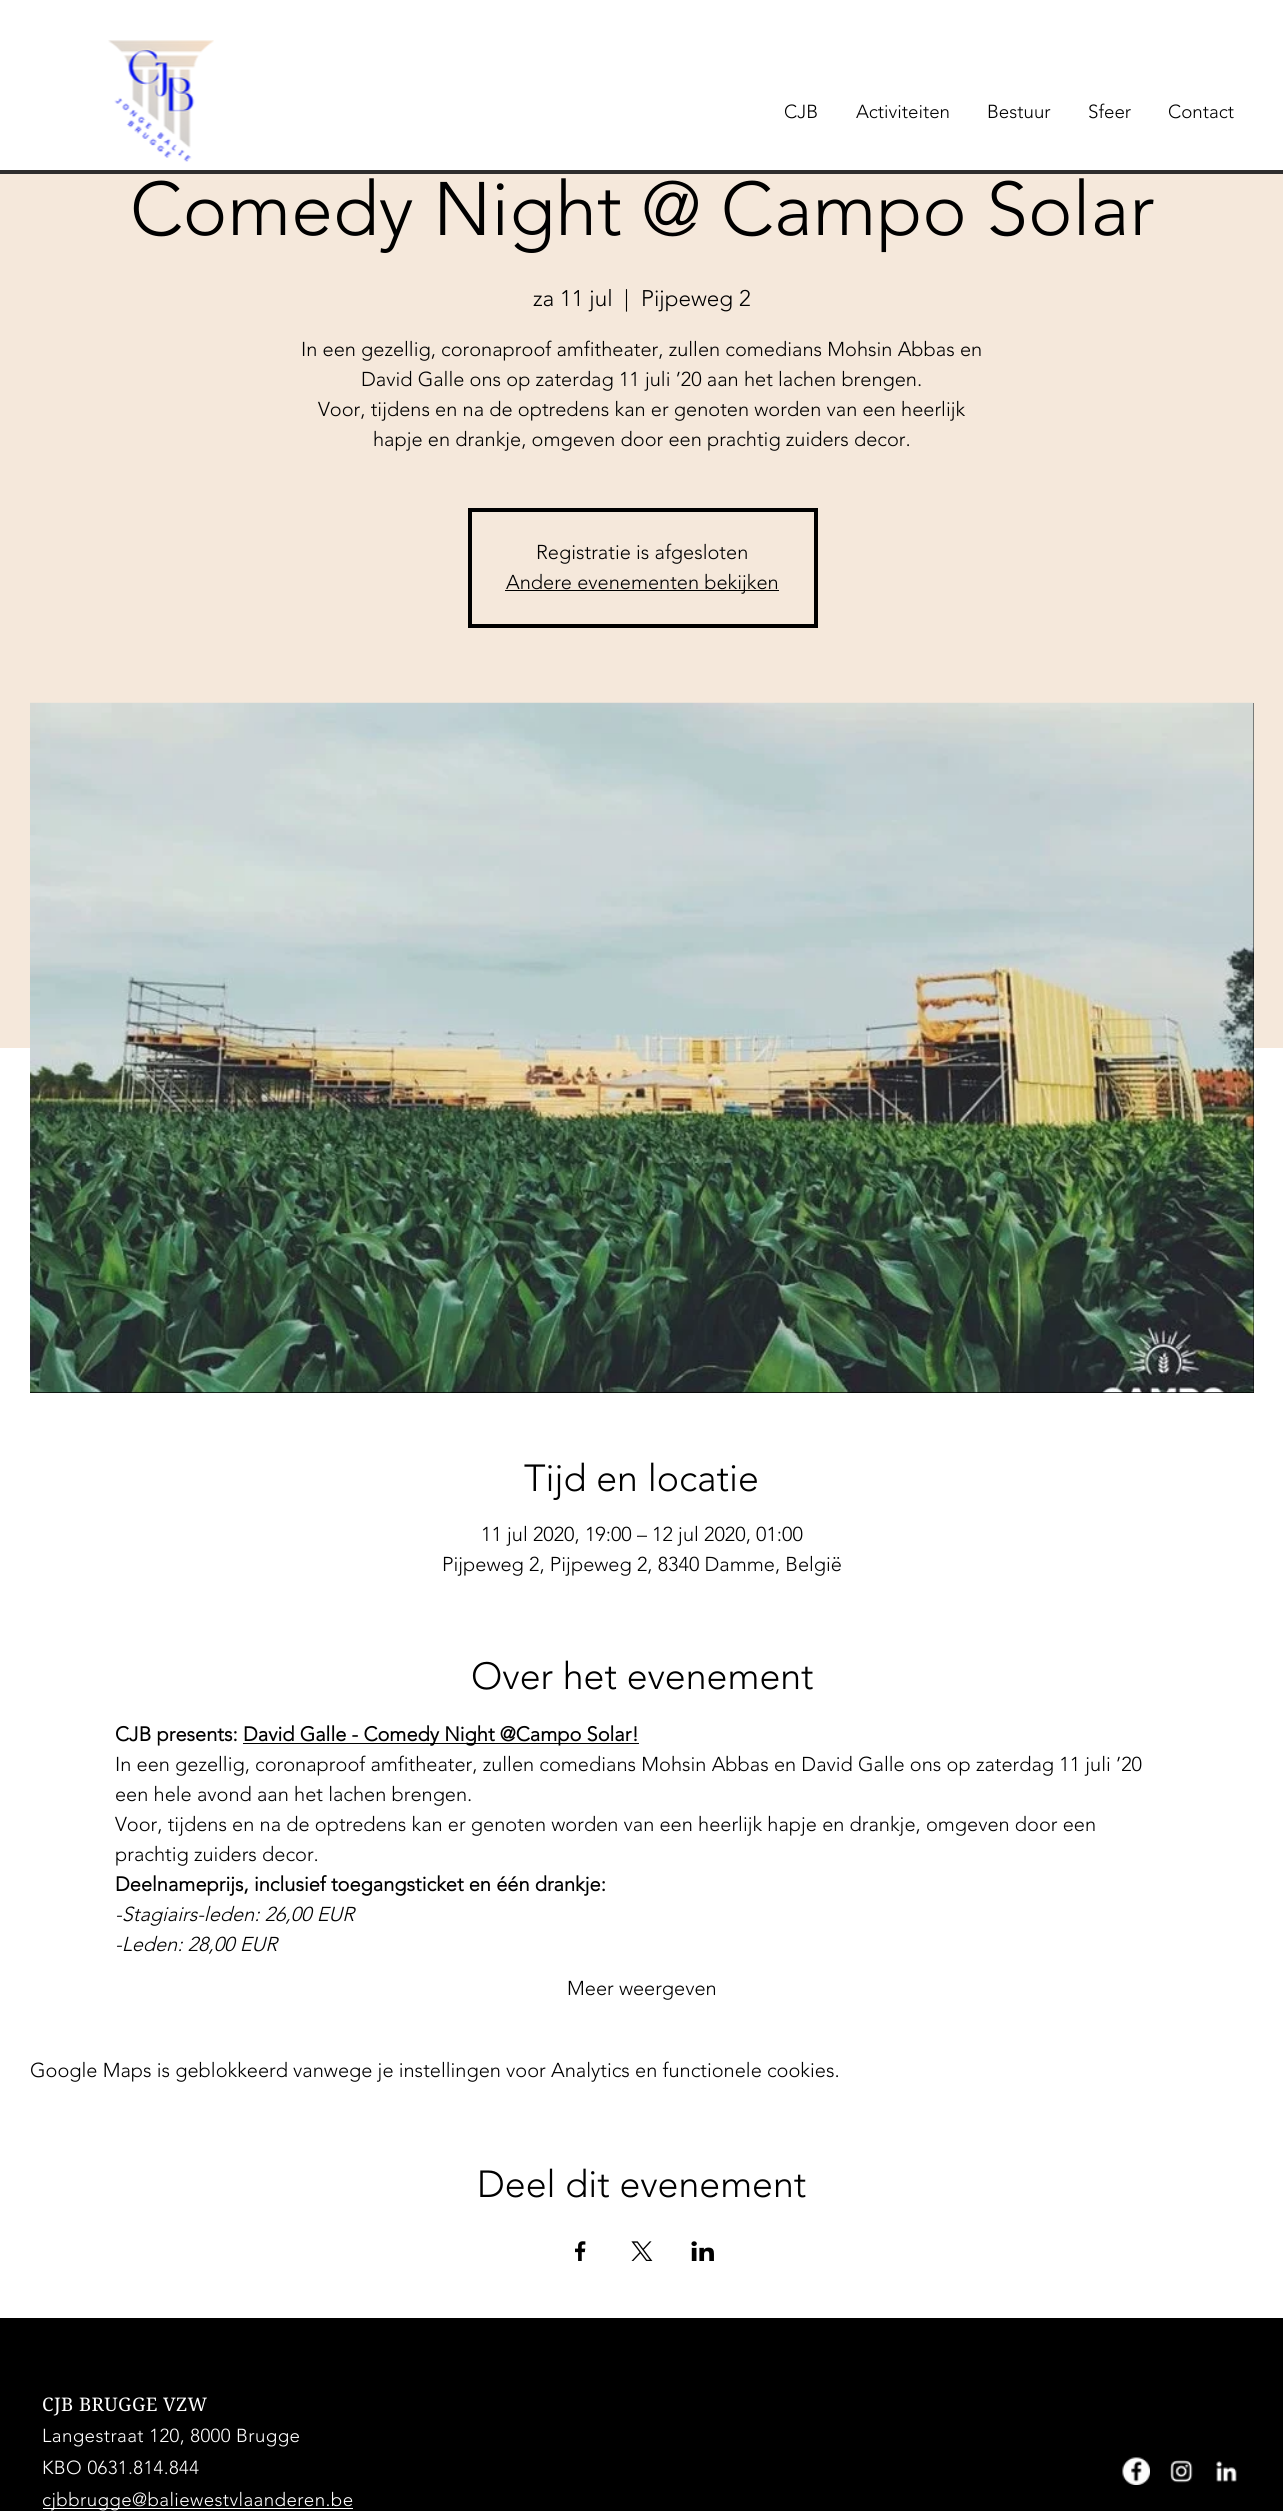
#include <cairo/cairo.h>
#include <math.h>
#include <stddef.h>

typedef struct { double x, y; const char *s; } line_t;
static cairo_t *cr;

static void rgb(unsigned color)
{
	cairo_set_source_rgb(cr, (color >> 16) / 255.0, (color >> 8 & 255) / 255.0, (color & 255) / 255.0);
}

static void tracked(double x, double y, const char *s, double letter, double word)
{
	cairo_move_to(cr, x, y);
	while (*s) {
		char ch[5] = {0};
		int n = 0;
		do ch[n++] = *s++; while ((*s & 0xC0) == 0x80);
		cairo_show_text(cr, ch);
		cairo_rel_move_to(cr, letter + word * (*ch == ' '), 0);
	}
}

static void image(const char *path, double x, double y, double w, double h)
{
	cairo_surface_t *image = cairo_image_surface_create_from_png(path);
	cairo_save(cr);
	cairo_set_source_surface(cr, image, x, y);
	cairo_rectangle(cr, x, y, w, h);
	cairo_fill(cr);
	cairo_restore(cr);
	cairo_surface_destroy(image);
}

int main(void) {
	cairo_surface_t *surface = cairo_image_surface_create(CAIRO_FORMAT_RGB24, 1283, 2511);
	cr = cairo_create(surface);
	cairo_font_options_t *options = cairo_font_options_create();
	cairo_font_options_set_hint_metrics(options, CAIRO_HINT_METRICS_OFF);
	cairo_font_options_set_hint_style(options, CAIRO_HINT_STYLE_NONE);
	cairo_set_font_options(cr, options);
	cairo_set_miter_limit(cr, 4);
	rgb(0xffffff);
	cairo_paint(cr);
	image("img/1.png", 108, 40, 106, 122);
	rgb(0x2f2e2e);
	cairo_rectangle(cr, 0, 170, 1283, 4);
	cairo_fill(cr);
	rgb(0xf5e8db);
	cairo_rectangle(cr, 0, 174, 1283, 874);
	cairo_fill(cr);
	cairo_rectangle(cr, 470, 510, 346, 116);
	rgb(0x000000);
	cairo_set_line_width(cr, 4);
	cairo_stroke(cr);
	cairo_rectangle(cr, 505, 590, 274, 1);
	cairo_fill(cr);
	cairo_rectangle(cr, 30, 703, 1224, 690);
	cairo_fill(cr);
	image("img/2.png", 30, 702, 1224, 691);
	cairo_rectangle(cr, 243, 1743, 396, 1);
	cairo_fill(cr);
	image("img/3.png", 575, 2241, 11, 20);
	image("img/4.png", 631, 2241, 22, 20);
	image("img/5.png", 691, 2241, 23, 20);
	cairo_rectangle(cr, 0, 2318, 1283, 193);
	cairo_fill(cr);
	rgb(0xffffff);
	cairo_rectangle(cr, 43, 2508, 310, 1);
	cairo_fill(cr);
	image("img/6.png", 1122, 2457, 28, 28);
	image("img/7.png", 1170, 2460, 23, 23);
	image("img/8.png", 1216, 2461, 21, 21);
	cairo_select_font_face(cr, "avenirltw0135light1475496 Light", CAIRO_FONT_SLANT_NORMAL, CAIRO_FONT_WEIGHT_NORMAL);
	cairo_set_font_size(cr, 18.75);
	rgb(0x000000);
	{
		static const line_t items[] = {
			{784, 118, "CJB"},
			{856, 118, "Activiteiten"},
			{987, 118, "Bestuur"},
			{1088, 118, "Sfeer"},
			{1168, 118, "Contact"},
		};
		for (size_t i = 0; i < sizeof items / sizeof *items; i++) {
			cairo_move_to(cr, items[i].x, items[i].y);
			cairo_show_text(cr, items[i].s);
		}
	}
	cairo_set_font_size(cr, 75);
	cairo_move_to(cr, 130, 235);
	cairo_show_text(cr, "Comedy Night @ Campo Solar");
	cairo_set_font_size(cr, 22.5);
	{
		static const line_t items[] = {
			{533, 306, "za 11 jul"},
			{624, 306, "|"},
			{641, 306, "Pijpeweg 2"},
		};
		for (size_t i = 0; i < sizeof items / sizeof *items; i++) {
			cairo_move_to(cr, items[i].x, items[i].y);
			cairo_show_text(cr, items[i].s);
		}
	}
	cairo_set_font_size(cr, 20);
	{
		static const line_t items[] = {
			{301, 356, "In een gezellig, coronaproof amfitheater, zullen comedians Mohsin Abbas en"},
			{361, 386, "David Galle ons op zaterdag 11 juli ’20 aan het lachen brengen."},
			{318, 416, "Voor, tijdens en na de optredens kan er genoten worden van een heerlijk"},
			{373, 446, "hapje en drankje, omgeven door een prachtig zuiders decor."},
			{536, 559, "Registratie is afgesloten"},
			{506, 589, "Andere evenementen bekijken"},
		};
		for (size_t i = 0; i < sizeof items / sizeof *items; i++) {
			cairo_move_to(cr, items[i].x, items[i].y);
			cairo_show_text(cr, items[i].s);
		}
	}
	cairo_set_font_size(cr, 37.5);
	cairo_move_to(cr, 524, 1491);
	cairo_show_text(cr, "Tijd en locatie");
	cairo_set_font_size(cr, 20);
	cairo_move_to(cr, 481, 1541);
	cairo_show_text(cr, "11 jul 2020, 19:00 – 12 jul 2020, 01:00");
	cairo_move_to(cr, 442, 1571);
	cairo_show_text(cr, "Pijpeweg 2, Pijpeweg 2, 8340 Damme, België");
	cairo_set_font_size(cr, 37.5);
	cairo_move_to(cr, 471, 1689);
	cairo_show_text(cr, "Over het evenement");
	cairo_select_font_face(cr, "avenirltw0135light1475496", CAIRO_FONT_SLANT_NORMAL, CAIRO_FONT_WEIGHT_BOLD);
	cairo_set_font_size(cr, 20);
	cairo_move_to(cr, 115, 1741);
	cairo_show_text(cr, "CJB presents:");
	cairo_move_to(cr, 243, 1741);
	cairo_show_text(cr, "David Galle - Comedy Night @Campo Solar!");
	cairo_select_font_face(cr, "avenirltw0135light1475496 Light", CAIRO_FONT_SLANT_NORMAL, CAIRO_FONT_WEIGHT_NORMAL);
	{
		static const line_t items[] = {
			{115, 1771, "In een gezellig, coronaproof amfitheater, zullen comedians Mohsin Abbas en David Galle ons op zaterdag 11 juli ’20"},
			{115, 1801, "een hele avond aan het lachen brengen."},
			{115, 1831, "Voor, tijdens en na de optredens kan er genoten worden van een heerlijk hapje en drankje, omgeven door een"},
			{115, 1861, "prachtig zuiders decor."},
		};
		for (size_t i = 0; i < sizeof items / sizeof *items; i++) {
			cairo_move_to(cr, items[i].x, items[i].y);
			cairo_show_text(cr, items[i].s);
		}
	}
	cairo_select_font_face(cr, "avenirltw0135light1475496", CAIRO_FONT_SLANT_NORMAL, CAIRO_FONT_WEIGHT_BOLD);
	cairo_move_to(cr, 115, 1891);
	cairo_show_text(cr, "Deelnameprijs, inclusief toegangsticket en één drankje:");
	cairo_select_font_face(cr, "avenirltw0135light1475496 Light", CAIRO_FONT_SLANT_ITALIC, CAIRO_FONT_WEIGHT_NORMAL);
	cairo_move_to(cr, 115, 1921);
	cairo_show_text(cr, "-Stagiairs-leden: 26,00 EUR");
	cairo_move_to(cr, 115, 1951);
	cairo_show_text(cr, "-Leden: 28,00 EUR");
	cairo_select_font_face(cr, "avenirltw0135light1475496 Light", CAIRO_FONT_SLANT_NORMAL, CAIRO_FONT_WEIGHT_NORMAL);
	cairo_move_to(cr, 567, 1995);
	cairo_show_text(cr, "Meer weergeven");
	cairo_move_to(cr, 30, 2077);
	cairo_show_text(cr, "Google Maps is geblokkeerd vanwege je instellingen voor Analytics en functionele cookies.");
	cairo_set_font_size(cr, 37.5);
	cairo_move_to(cr, 477, 2197);
	cairo_show_text(cr, "Deel dit evenement");
	cairo_select_font_face(cr, "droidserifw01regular", CAIRO_FONT_SLANT_NORMAL, CAIRO_FONT_WEIGHT_NORMAL);
	cairo_set_font_size(cr, 18.75);
	rgb(0xffffff);
	tracked(42, 2411, "CJB BRUGGE VZW", 0.4, 0);
	cairo_select_font_face(cr, "avenirltw0135light1475496 Light", CAIRO_FONT_SLANT_NORMAL, CAIRO_FONT_WEIGHT_NORMAL);
	{
		static const line_t items[] = {
			{42, 2442, "Langestraat 120, 8000 Brugge"},
			{42, 2474, "KBO 0631.814.844"},
			{42, 2506, "cjbbrugge@baliewestvlaanderen.be"},
		};
		for (size_t i = 0; i < sizeof items / sizeof *items; i++) {
			tracked(items[i].x, items[i].y, items[i].s, 0.4, 0);
		}
	}
	cairo_surface_write_to_png(surface, "page.png");
	cairo_font_options_destroy(options);
	cairo_destroy(cr);
	cairo_surface_destroy(surface);
	return 0;
}
